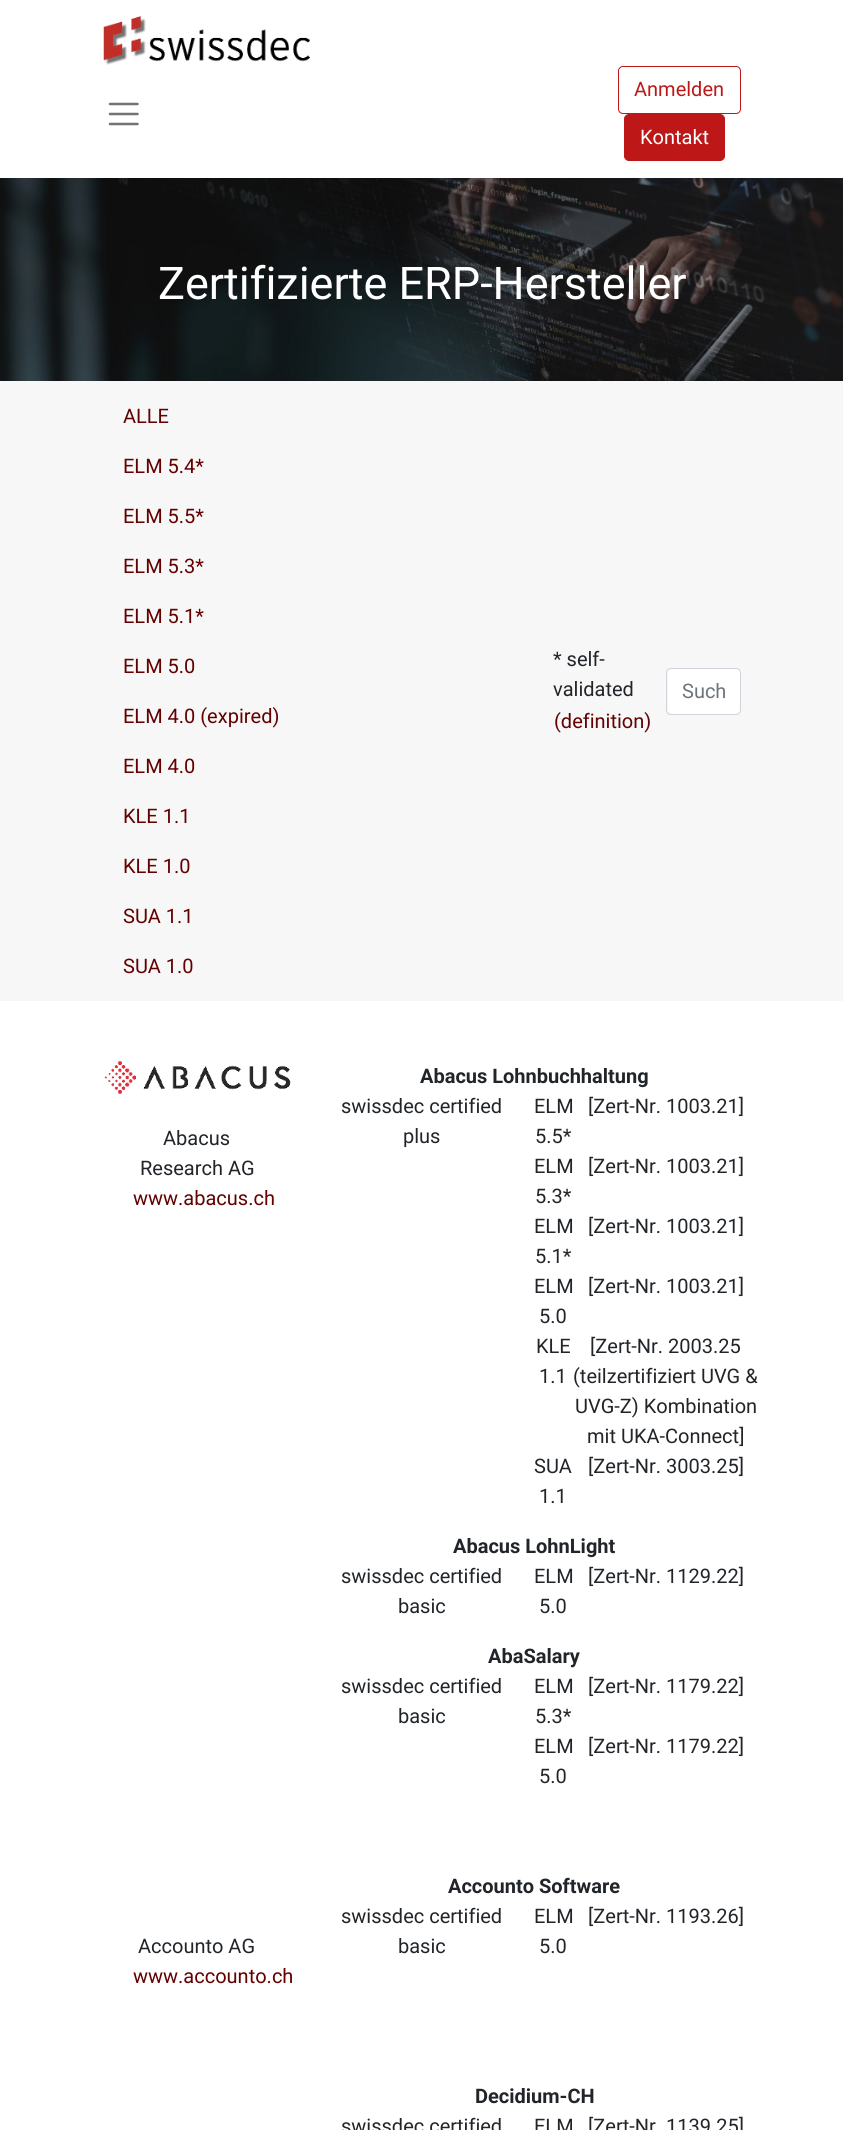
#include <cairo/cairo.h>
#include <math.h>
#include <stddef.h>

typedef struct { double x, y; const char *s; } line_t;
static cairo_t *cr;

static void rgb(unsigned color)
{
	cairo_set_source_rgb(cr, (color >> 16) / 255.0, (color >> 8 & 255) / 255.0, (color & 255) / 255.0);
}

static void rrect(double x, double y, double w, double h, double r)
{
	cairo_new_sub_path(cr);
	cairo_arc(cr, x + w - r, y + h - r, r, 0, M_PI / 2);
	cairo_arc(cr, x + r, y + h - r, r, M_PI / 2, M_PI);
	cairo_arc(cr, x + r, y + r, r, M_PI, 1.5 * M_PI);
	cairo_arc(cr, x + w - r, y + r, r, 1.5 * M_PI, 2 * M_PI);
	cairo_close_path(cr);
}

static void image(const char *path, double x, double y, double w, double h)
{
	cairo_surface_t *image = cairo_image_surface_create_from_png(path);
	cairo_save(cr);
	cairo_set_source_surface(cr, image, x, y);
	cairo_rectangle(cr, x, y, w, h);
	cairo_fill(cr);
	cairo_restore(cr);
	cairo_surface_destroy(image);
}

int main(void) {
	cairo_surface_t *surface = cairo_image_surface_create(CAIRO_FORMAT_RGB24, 843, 2130);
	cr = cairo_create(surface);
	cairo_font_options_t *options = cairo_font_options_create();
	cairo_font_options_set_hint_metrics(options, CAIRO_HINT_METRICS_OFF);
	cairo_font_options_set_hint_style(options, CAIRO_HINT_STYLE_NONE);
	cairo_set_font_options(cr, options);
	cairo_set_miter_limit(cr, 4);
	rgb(0xffffff);
	cairo_paint(cr);
	image("img/1.png", 103, 16, 207, 49);
	cairo_new_path(cr);
	cairo_move_to(cr, 110, 104);
	cairo_line_to(cr, 137.5, 104);
	cairo_move_to(cr, 110, 114);
	cairo_line_to(cr, 137.5, 114);
	cairo_move_to(cr, 110, 124);
	cairo_line_to(cr, 137.5, 124);
	rgb(0x737373);
	cairo_set_line_width(cr, 2.5);
	cairo_set_line_cap(cr, CAIRO_LINE_CAP_ROUND);
	cairo_stroke(cr);
	rrect(618.5, 66.5, 122, 47, 4.5);
	rgb(0xbe1717);
	cairo_set_line_width(cr, 1);
	cairo_set_line_cap(cr, CAIRO_LINE_CAP_BUTT);
	cairo_stroke(cr);
	rrect(624.5, 114.5, 100, 46, 4.5);
	cairo_fill_preserve(cr);
	cairo_stroke(cr);
	image("img/2.png", 0, 178, 843, 203);
	rgb(0xf7f7f7);
	cairo_rectangle(cr, 0, 381, 843, 620);
	cairo_fill(cr);
	rgb(0xffffff);
	rrect(668, 669, 72, 45, 4);
	cairo_fill(cr);
	rrect(666.5, 668.5, 74, 46, 4.5);
	rgb(0xced4da);
	cairo_stroke(cr);
	image("img/3.png", 104, 1061, 187, 33);
	cairo_select_font_face(cr, "Roboto", CAIRO_FONT_SLANT_NORMAL, CAIRO_FONT_WEIGHT_NORMAL);
	cairo_set_font_size(cr, 20);
	rgb(0xbe1717);
	cairo_move_to(cr, 634, 96);
	cairo_show_text(cr, "Anmelden");
	rgb(0xffffff);
	cairo_move_to(cr, 640, 144);
	cairo_show_text(cr, "Kontakt");
	cairo_set_font_size(cr, 45);
	cairo_move_to(cr, 158, 299);
	cairo_show_text(cr, "Zertifizierte ERP-Hersteller");
	cairo_set_font_size(cr, 20);
	rgb(0x630000);
	{
		static const line_t items[] = {
			{123, 423, "ALLE"},
			{123, 473, "ELM 5.4*"},
			{123, 523, "ELM 5.5*"},
			{123, 573, "ELM 5.3*"},
			{123, 623, "ELM 5.1*"},
			{123, 673, "ELM 5.0"},
			{123, 723, "ELM 4.0 (expired)"},
			{123, 773, "ELM 4.0"},
			{123, 823, "KLE 1.1"},
			{123, 873, "KLE 1.0"},
			{123, 923, "SUA 1.1"},
			{123, 973, "SUA 1.0"},
		};
		for (size_t i = 0; i < sizeof items / sizeof *items; i++) {
			cairo_move_to(cr, items[i].x, items[i].y);
			cairo_show_text(cr, items[i].s);
		}
	}
	rgb(0x212529);
	cairo_move_to(cr, 553, 666);
	cairo_show_text(cr, "* self-");
	cairo_move_to(cr, 553, 696);
	cairo_show_text(cr, "validated");
	rgb(0x630000);
	cairo_move_to(cr, 554, 728);
	cairo_show_text(cr, "(definition)");
	rgb(0x6c757d);
	cairo_move_to(cr, 682, 698);
	cairo_show_text(cr, "Such");
	rgb(0x212529);
	cairo_move_to(cr, 163, 1145);
	cairo_show_text(cr, "Abacus");
	cairo_move_to(cr, 140, 1175);
	cairo_show_text(cr, "Research AG");
	rgb(0x630000);
	cairo_move_to(cr, 133, 1205);
	cairo_show_text(cr, "www.abacus.ch");
	cairo_select_font_face(cr, "Roboto", CAIRO_FONT_SLANT_NORMAL, CAIRO_FONT_WEIGHT_BOLD);
	rgb(0x212529);
	cairo_move_to(cr, 420, 1083);
	cairo_show_text(cr, "Abacus Lohnbuchhaltung");
	cairo_select_font_face(cr, "Roboto", CAIRO_FONT_SLANT_NORMAL, CAIRO_FONT_WEIGHT_NORMAL);
	{
		static const line_t items[] = {
			{341, 1113, "swissdec certified"},
			{403, 1143, "plus"},
			{534, 1113, "ELM"},
			{535, 1143, "5.5*"},
			{588, 1113, "[Zert-Nr. 1003.21]"},
			{534, 1173, "ELM"},
			{535, 1203, "5.3*"},
			{588, 1173, "[Zert-Nr. 1003.21]"},
			{534, 1233, "ELM"},
			{535, 1263, "5.1*"},
			{588, 1233, "[Zert-Nr. 1003.21]"},
			{534, 1293, "ELM"},
			{539, 1323, "5.0"},
			{588, 1293, "[Zert-Nr. 1003.21]"},
			{536, 1353, "KLE"},
			{539, 1383, "1.1"},
			{590, 1353, "[Zert-Nr. 2003.25"},
			{573, 1383, "(teilzertifiziert UVG &"},
			{575, 1413, "UVG-Z) Kombination"},
			{587, 1443, "mit UKA-Connect]"},
			{534, 1473, "SUA"},
			{539, 1503, "1.1"},
			{588, 1473, "[Zert-Nr. 3003.25]"},
		};
		for (size_t i = 0; i < sizeof items / sizeof *items; i++) {
			cairo_move_to(cr, items[i].x, items[i].y);
			cairo_show_text(cr, items[i].s);
		}
	}
	cairo_select_font_face(cr, "Roboto", CAIRO_FONT_SLANT_NORMAL, CAIRO_FONT_WEIGHT_BOLD);
	cairo_move_to(cr, 453, 1553);
	cairo_show_text(cr, "Abacus LohnLight");
	cairo_select_font_face(cr, "Roboto", CAIRO_FONT_SLANT_NORMAL, CAIRO_FONT_WEIGHT_NORMAL);
	{
		static const line_t items[] = {
			{341, 1583, "swissdec certified"},
			{398, 1613, "basic"},
			{534, 1583, "ELM"},
			{539, 1613, "5.0"},
			{588, 1583, "[Zert-Nr. 1129.22]"},
		};
		for (size_t i = 0; i < sizeof items / sizeof *items; i++) {
			cairo_move_to(cr, items[i].x, items[i].y);
			cairo_show_text(cr, items[i].s);
		}
	}
	cairo_select_font_face(cr, "Roboto", CAIRO_FONT_SLANT_NORMAL, CAIRO_FONT_WEIGHT_BOLD);
	cairo_move_to(cr, 488, 1663);
	cairo_show_text(cr, "AbaSalary");
	cairo_select_font_face(cr, "Roboto", CAIRO_FONT_SLANT_NORMAL, CAIRO_FONT_WEIGHT_NORMAL);
	{
		static const line_t items[] = {
			{341, 1693, "swissdec certified"},
			{398, 1723, "basic"},
			{534, 1693, "ELM"},
			{535, 1723, "5.3*"},
			{588, 1693, "[Zert-Nr. 1179.22]"},
			{534, 1753, "ELM"},
			{539, 1783, "5.0"},
			{588, 1753, "[Zert-Nr. 1179.22]"},
		};
		for (size_t i = 0; i < sizeof items / sizeof *items; i++) {
			cairo_move_to(cr, items[i].x, items[i].y);
			cairo_show_text(cr, items[i].s);
		}
	}
	cairo_select_font_face(cr, "Roboto", CAIRO_FONT_SLANT_NORMAL, CAIRO_FONT_WEIGHT_BOLD);
	cairo_move_to(cr, 448, 1893);
	cairo_show_text(cr, "Accounto Software");
	cairo_select_font_face(cr, "Roboto", CAIRO_FONT_SLANT_NORMAL, CAIRO_FONT_WEIGHT_NORMAL);
	{
		static const line_t items[] = {
			{341, 1923, "swissdec certified"},
			{398, 1953, "basic"},
			{534, 1923, "ELM"},
			{539, 1953, "5.0"},
			{588, 1923, "[Zert-Nr. 1193.26]"},
			{138, 1953, "Accounto AG"},
		};
		for (size_t i = 0; i < sizeof items / sizeof *items; i++) {
			cairo_move_to(cr, items[i].x, items[i].y);
			cairo_show_text(cr, items[i].s);
		}
	}
	rgb(0x630000);
	cairo_move_to(cr, 133, 1983);
	cairo_show_text(cr, "www.accounto.ch");
	cairo_select_font_face(cr, "Roboto", CAIRO_FONT_SLANT_NORMAL, CAIRO_FONT_WEIGHT_BOLD);
	rgb(0x212529);
	cairo_move_to(cr, 475, 2103);
	cairo_show_text(cr, "Decidium-CH");
	cairo_select_font_face(cr, "Roboto", CAIRO_FONT_SLANT_NORMAL, CAIRO_FONT_WEIGHT_NORMAL);
	{
		static const line_t items[] = {
			{341, 2133, "swissdec certified"},
			{534, 2133, "ELM"},
			{588, 2133, "[Zert-Nr. 1139.25]"},
		};
		for (size_t i = 0; i < sizeof items / sizeof *items; i++) {
			cairo_move_to(cr, items[i].x, items[i].y);
			cairo_show_text(cr, items[i].s);
		}
	}
	cairo_surface_write_to_png(surface, "page.png");
	cairo_font_options_destroy(options);
	cairo_destroy(cr);
	cairo_surface_destroy(surface);
	return 0;
}
